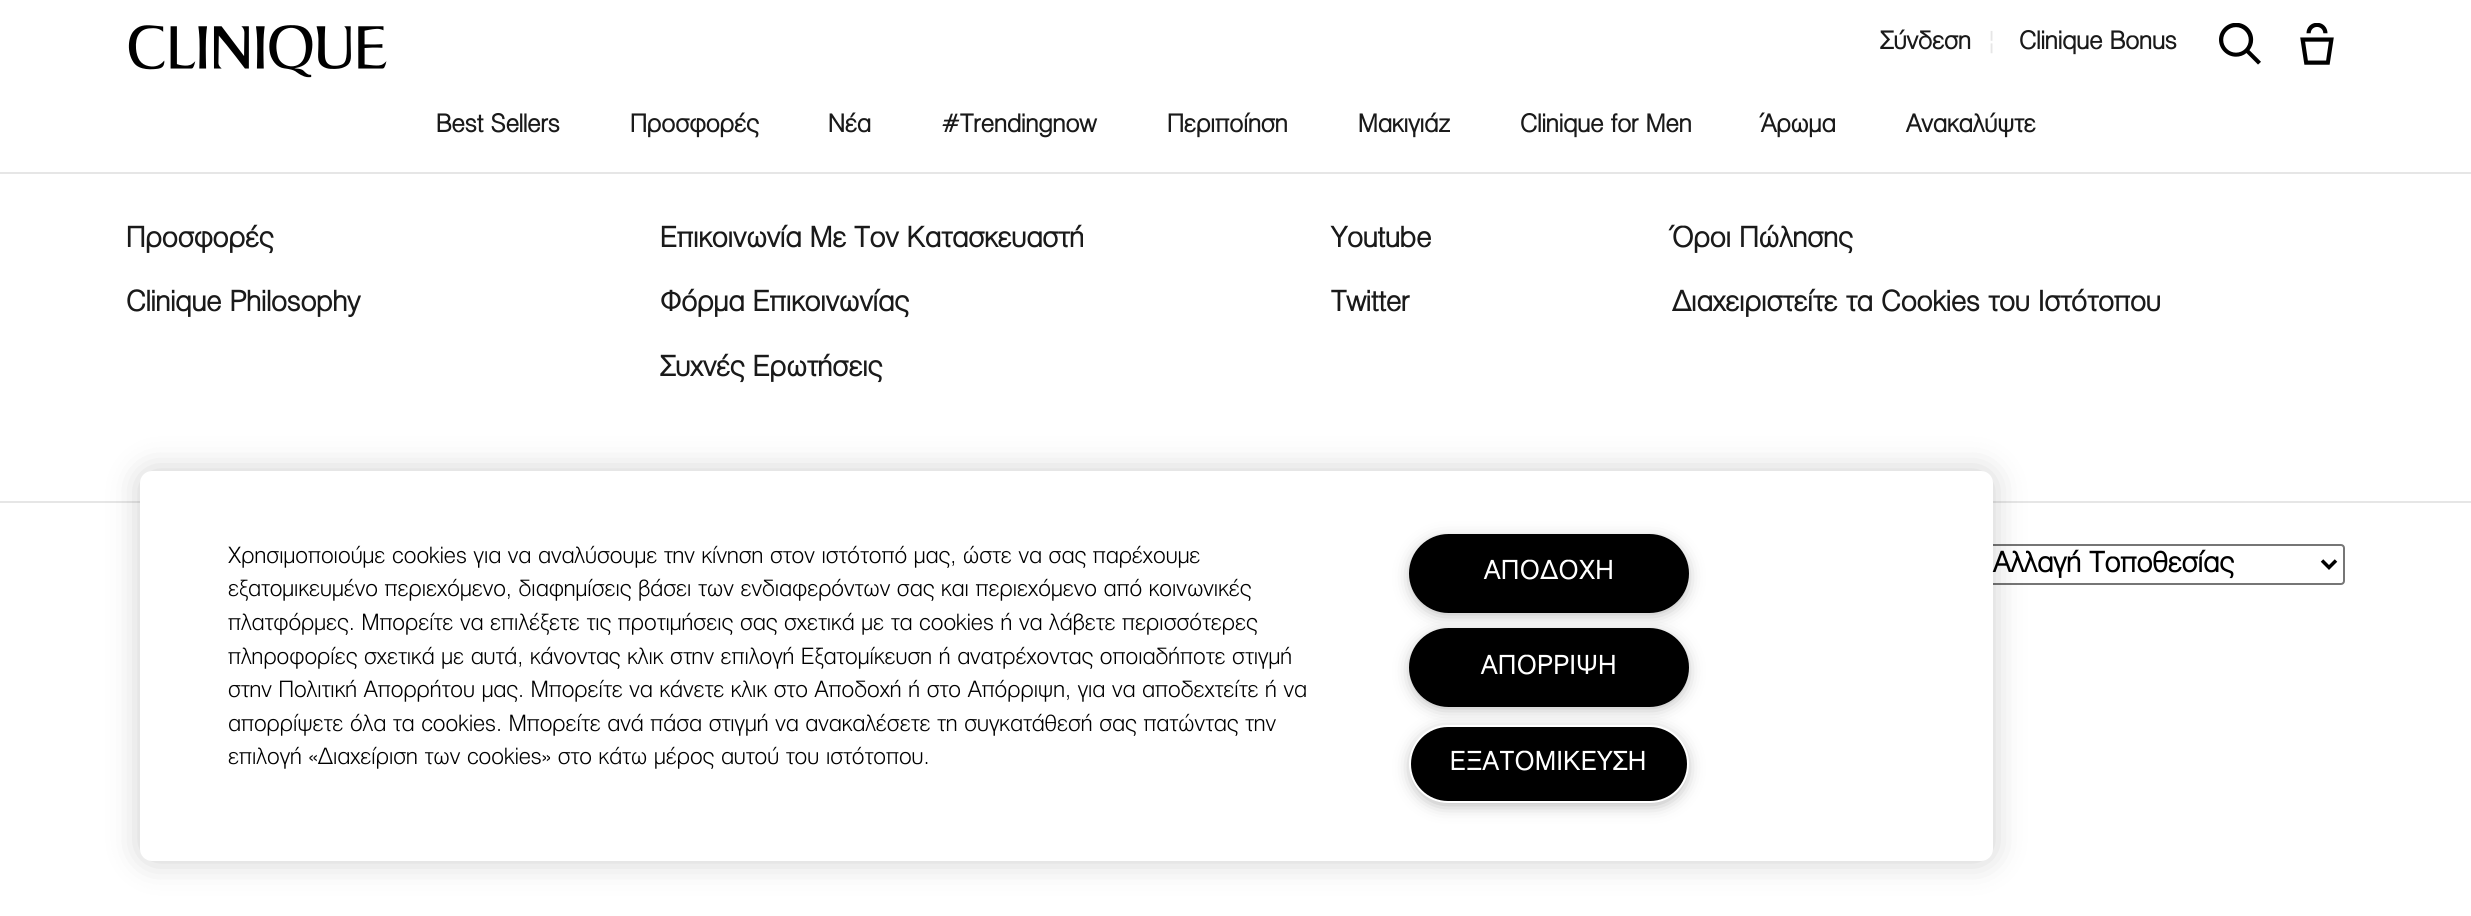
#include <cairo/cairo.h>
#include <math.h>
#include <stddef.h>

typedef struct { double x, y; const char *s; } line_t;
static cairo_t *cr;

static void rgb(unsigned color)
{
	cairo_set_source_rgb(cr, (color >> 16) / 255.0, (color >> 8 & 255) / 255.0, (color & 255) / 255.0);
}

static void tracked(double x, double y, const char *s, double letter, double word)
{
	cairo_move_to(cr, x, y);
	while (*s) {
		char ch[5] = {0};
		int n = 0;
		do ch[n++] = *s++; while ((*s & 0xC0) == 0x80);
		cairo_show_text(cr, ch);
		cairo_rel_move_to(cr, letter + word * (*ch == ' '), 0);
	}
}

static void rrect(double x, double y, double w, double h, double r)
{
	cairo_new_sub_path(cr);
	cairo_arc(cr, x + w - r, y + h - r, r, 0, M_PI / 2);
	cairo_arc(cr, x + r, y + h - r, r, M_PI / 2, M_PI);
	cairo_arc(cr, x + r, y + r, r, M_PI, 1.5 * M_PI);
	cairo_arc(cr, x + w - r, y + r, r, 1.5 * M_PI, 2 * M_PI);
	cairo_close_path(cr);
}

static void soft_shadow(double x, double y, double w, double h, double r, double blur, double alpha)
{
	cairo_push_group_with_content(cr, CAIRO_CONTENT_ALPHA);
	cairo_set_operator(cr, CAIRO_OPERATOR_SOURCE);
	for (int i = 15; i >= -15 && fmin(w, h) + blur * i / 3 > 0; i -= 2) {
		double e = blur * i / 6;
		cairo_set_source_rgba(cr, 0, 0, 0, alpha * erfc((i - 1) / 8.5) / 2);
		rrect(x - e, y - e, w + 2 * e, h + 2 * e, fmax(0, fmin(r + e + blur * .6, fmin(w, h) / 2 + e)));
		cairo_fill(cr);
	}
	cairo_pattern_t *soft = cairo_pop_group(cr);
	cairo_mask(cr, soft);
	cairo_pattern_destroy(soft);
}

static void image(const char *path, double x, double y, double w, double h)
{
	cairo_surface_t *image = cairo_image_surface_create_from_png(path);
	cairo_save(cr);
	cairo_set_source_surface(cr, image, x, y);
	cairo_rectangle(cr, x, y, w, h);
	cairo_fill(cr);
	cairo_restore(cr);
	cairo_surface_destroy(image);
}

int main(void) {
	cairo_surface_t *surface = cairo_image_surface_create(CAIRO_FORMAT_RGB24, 2471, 916);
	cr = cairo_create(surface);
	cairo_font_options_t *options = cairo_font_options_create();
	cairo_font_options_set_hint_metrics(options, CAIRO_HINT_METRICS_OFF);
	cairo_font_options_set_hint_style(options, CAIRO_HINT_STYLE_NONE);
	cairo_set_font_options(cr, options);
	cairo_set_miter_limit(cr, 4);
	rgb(0xffffff);
	cairo_paint(cr);
	rgb(0xe6e6e6);
	cairo_rectangle(cr, 0, 172, 2471, 2);
	cairo_fill(cr);
	image("img/1.png", 128, 25, 259, 53);
	image("img/2.png", 2219, 23, 42, 42);
	image("img/3.png", 2300, 23, 34, 42);
	cairo_rectangle(cr, 0, 501, 2471, 2);
	cairo_fill(cr);
	rrect(1982, 545, 362, 39, 3);
	rgb(0x767676);
	cairo_stroke(cr);
	cairo_new_path(cr);
	cairo_move_to(cr, 2322, 560.5);
	cairo_line_to(cr, 2329, 567.5);
	cairo_line_to(cr, 2336, 560.5);
	rgb(0x000000);
	cairo_set_line_width(cr, 3.5);
	cairo_stroke(cr);
	rgb(0x000000);
	soft_shadow(140, 471, 1853, 390, 12, 16, 0.2);
	rgb(0xffffff);
	rrect(140, 471, 1853, 390, 12);
	cairo_fill(cr);
	rgb(0x999999);
	soft_shadow(1414, 543, 270, 68, 34, 9, 1);
	rgb(0x000000);
	rrect(1410, 535, 278, 77, 38.5);
	cairo_fill_preserve(cr);
	cairo_set_line_width(cr, 2);
	cairo_stroke(cr);
	rgb(0x999999);
	soft_shadow(1414, 637, 270, 68, 34, 9, 1);
	rgb(0x000000);
	rrect(1410, 629, 278, 77, 38.5);
	cairo_fill_preserve(cr);
	cairo_stroke(cr);
	rgb(0x999999);
	soft_shadow(1414, 733, 270, 69, 34.5, 9, 1);
	rgb(0x000000);
	rrect(1410, 726, 278, 76, 38);
	cairo_fill_preserve(cr);
	rgb(0xffffff);
	cairo_stroke(cr);
	cairo_select_font_face(cr, "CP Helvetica", CAIRO_FONT_SLANT_NORMAL, CAIRO_FONT_WEIGHT_BOLD);
	cairo_set_font_size(cr, 24.5);
	rgb(0x1a1a1a);
	cairo_move_to(cr, 1880, 49);
	cairo_show_text(cr, "Σύνδεση");
	rgb(0xe6e6e6);
	cairo_move_to(cr, 1985, 49);
	cairo_show_text(cr, "|");
	rgb(0x1a1a1a);
	{
		static const line_t items[] = {
			{2019, 49, "Clinique Bonus"},
			{436, 132, "Best Sellers"},
			{630, 132, "Προσφορές"},
			{828, 132, "Νέα"},
			{941, 132, "#Trendingnow"},
			{1167, 132, "Περιποίηση"},
			{1358, 132, "Μακιγιάζ"},
			{1520, 132, "Clinique for Men"},
			{1761, 132, "Άρωμα"},
			{1906, 132, "Ανακαλύψτε"},
		};
		for (size_t i = 0; i < sizeof items / sizeof *items; i++) {
			cairo_move_to(cr, items[i].x, items[i].y);
			cairo_show_text(cr, items[i].s);
		}
	}
	cairo_set_font_size(cr, 28);
	{
		static const line_t items[] = {
			{126, 247, "Προσφορές"},
			{126, 311, "Clinique Philosophy"},
			{660, 247, "Επικοινωνία Με Τον Κατασκευαστή"},
			{660, 311, "Φόρμα Επικοινωνίας"},
			{660, 376, "Συχνές Ερωτήσεις"},
			{1331, 247, "Youtube"},
			{1331, 311, "Twitter"},
			{1672, 247, "Όροι Πώλησης"},
			{1672, 311, "Διαχειριστείτε τα Cookies του Ιστότοπου"},
		};
		for (size_t i = 0; i < sizeof items / sizeof *items; i++) {
			cairo_move_to(cr, items[i].x, items[i].y);
			cairo_show_text(cr, items[i].s);
		}
	}
	rgb(0x000000);
	cairo_move_to(cr, 1993, 572);
	cairo_show_text(cr, "Αλλαγή Τοποθεσίας");
	cairo_select_font_face(cr, "CP Helvetica Light", CAIRO_FONT_SLANT_NORMAL, CAIRO_FONT_WEIGHT_NORMAL);
	cairo_set_font_size(cr, 22.4);
	{
		static const line_t items[] = {
			{228, 563, "Χρησιμοποιούμε cookies για να αναλύσουμε την κίνηση στον ιστότοπό μας, ώστε να σας παρέχουμε"},
			{228, 596, "εξατομικευμένο περιεχόμενο, διαφημίσεις βάσει των ενδιαφερόντων σας και περιεχόμενο από κοινωνικές"},
			{228, 630, "πλατφόρμες. Μπορείτε να επιλέξετε τις προτιμήσεις σας σχετικά με τα cookies ή να λάβετε περισσότερες"},
			{228, 664, "πληροφορίες σχετικά με αυτά, κάνοντας κλικ στην επιλογή Εξατομίκευση ή ανατρέχοντας οποιαδήποτε στιγμή"},
			{228, 697, "στην Πολιτική Απορρήτου μας. Μπορείτε να κάνετε κλικ στο Αποδοχή ή στο Απόρριψη, για να αποδεχτείτε ή να"},
			{228, 731, "απορρίψετε όλα τα cookies. Μπορείτε ανά πάσα στιγμή να ανακαλέσετε τη συγκατάθεσή σας πατώντας την"},
			{228, 764, "επιλογή «Διαχείριση των cookies» στο κάτω μέρος αυτού του ιστότοπου."},
		};
		for (size_t i = 0; i < sizeof items / sizeof *items; i++) {
			cairo_move_to(cr, items[i].x, items[i].y);
			cairo_show_text(cr, items[i].s);
		}
	}
	cairo_select_font_face(cr, "CP Helvetica", CAIRO_FONT_SLANT_NORMAL, CAIRO_FONT_WEIGHT_BOLD);
	cairo_set_font_size(cr, 25.25);
	rgb(0xffffff);
	{
		static const line_t items[] = {
			{1484, 579, "ΑΠΟΔΟΧΗ"},
			{1481, 674, "ΑΠΟΡΡΙΨΗ"},
			{1450, 770, "ΕΞΑΤΟΜΙΚΕΥΣΗ"},
		};
		for (size_t i = 0; i < sizeof items / sizeof *items; i++) {
			tracked(items[i].x, items[i].y, items[i].s, 1.25, 0);
		}
	}
	cairo_surface_write_to_png(surface, "page.png");
	cairo_font_options_destroy(options);
	cairo_destroy(cr);
	cairo_surface_destroy(surface);
	return 0;
}
